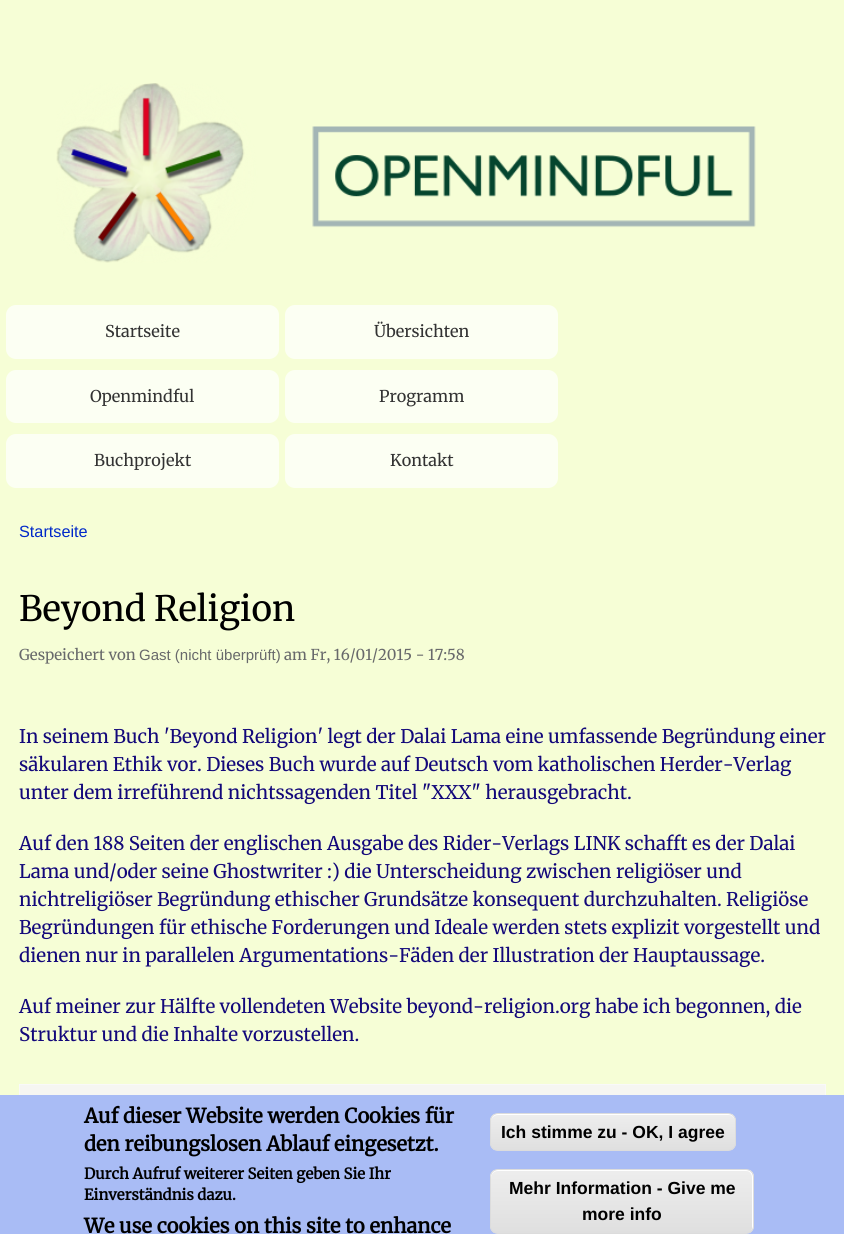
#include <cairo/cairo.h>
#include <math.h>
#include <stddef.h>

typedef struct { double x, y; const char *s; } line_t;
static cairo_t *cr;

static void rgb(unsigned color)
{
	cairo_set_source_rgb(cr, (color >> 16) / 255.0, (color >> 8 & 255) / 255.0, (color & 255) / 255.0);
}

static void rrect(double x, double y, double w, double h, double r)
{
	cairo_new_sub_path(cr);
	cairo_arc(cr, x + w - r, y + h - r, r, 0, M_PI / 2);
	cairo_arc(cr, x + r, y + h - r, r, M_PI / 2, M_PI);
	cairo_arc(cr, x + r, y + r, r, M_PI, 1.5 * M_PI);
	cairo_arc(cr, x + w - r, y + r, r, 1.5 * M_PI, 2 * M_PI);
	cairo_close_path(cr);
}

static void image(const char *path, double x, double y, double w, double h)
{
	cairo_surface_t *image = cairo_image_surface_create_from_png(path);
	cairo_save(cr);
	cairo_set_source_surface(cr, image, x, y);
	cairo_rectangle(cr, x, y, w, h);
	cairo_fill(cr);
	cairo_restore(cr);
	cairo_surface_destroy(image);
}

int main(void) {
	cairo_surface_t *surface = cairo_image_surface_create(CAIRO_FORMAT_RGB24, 844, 1234);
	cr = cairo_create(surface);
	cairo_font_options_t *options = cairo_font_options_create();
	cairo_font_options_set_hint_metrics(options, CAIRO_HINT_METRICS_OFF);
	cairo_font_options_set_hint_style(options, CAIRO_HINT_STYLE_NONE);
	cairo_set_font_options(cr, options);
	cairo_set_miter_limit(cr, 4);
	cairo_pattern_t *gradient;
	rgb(0xf6fed6);
	cairo_paint(cr);
	image("img/1.png", 56, 83, 700, 180);
	rgb(0xfcfff3);
	rrect(6, 305, 273, 54, 10);
	cairo_fill(cr);
	rrect(285, 305, 273, 54, 10);
	cairo_fill(cr);
	rrect(6, 370, 273, 53, 10);
	cairo_fill(cr);
	rrect(285, 370, 273, 53, 10);
	cairo_fill(cr);
	rrect(6, 434, 273, 54, 10);
	cairo_fill(cr);
	rrect(285, 434, 273, 54, 10);
	cairo_fill(cr);
	rgb(0xf6f6f2);
	cairo_rectangle(cr, 20, 1085, 805, 10);
	cairo_fill(cr);
	cairo_rectangle(cr, 19.5, 1084.5, 806, 76);
	rgb(0xf9f9f9);
	cairo_set_line_width(cr, 1);
	cairo_stroke(cr);
	rgb(0xa9bcf5);
	cairo_rectangle(cr, 0, 1095, 844, 139);
	cairo_fill(cr);
	cairo_save(cr);
	rrect(490, 1113, 246, 38, 8);
	cairo_clip(cr);
	gradient = cairo_pattern_create_linear(613, 1114, 613, 1150);
	cairo_pattern_add_color_stop_rgba(gradient, 0.05, 0.929, 0.929, 0.929, 1);
	cairo_pattern_add_color_stop_rgba(gradient, 1, 0.875, 0.875, 0.875, 1);
	cairo_set_source(cr, gradient);
	cairo_pattern_destroy(gradient);
	cairo_rectangle(cr, 490, 1114, 246, 36);
	cairo_fill(cr);
	cairo_restore(cr);
	rgb(0xffffff);
	cairo_new_path(cr);
	cairo_move_to(cr, 498, 1115);
	cairo_line_to(cr, 729, 1115);
	cairo_curve_to(cr, 732, 1115, 735, 1118, 735, 1121);
	cairo_curve_to(cr, 735, 1117, 733, 1114, 729, 1114);
	cairo_line_to(cr, 496, 1114);
	cairo_curve_to(cr, 492, 1115, 491, 1118, 491, 1121);
	cairo_curve_to(cr, 491, 1118, 494, 1115, 498, 1115);
	cairo_close_path(cr);
	cairo_fill(cr);
	rrect(490.5, 1113.5, 245, 37, 7.5);
	rgb(0xdcdcdc);
	cairo_stroke(cr);
	cairo_save(cr);
	rrect(490, 1169, 264, 65, 8);
	cairo_clip(cr);
	gradient = cairo_pattern_create_linear(622, 1170, 622, 1233);
	cairo_pattern_add_color_stop_rgba(gradient, 0.05, 0.929, 0.929, 0.929, 1);
	cairo_pattern_add_color_stop_rgba(gradient, 1, 0.875, 0.875, 0.875, 1);
	cairo_set_source(cr, gradient);
	cairo_pattern_destroy(gradient);
	cairo_rectangle(cr, 490, 1170, 264, 63);
	cairo_fill(cr);
	cairo_restore(cr);
	rgb(0xffffff);
	cairo_new_path(cr);
	cairo_move_to(cr, 498, 1171);
	cairo_line_to(cr, 746, 1171);
	cairo_curve_to(cr, 750, 1171, 752, 1174, 752, 1178);
	cairo_line_to(cr, 752, 1228);
	cairo_curve_to(cr, 752, 1229, 752, 1230, 751, 1231);
	cairo_curve_to(cr, 752, 1230, 753, 1229, 753, 1227);
	cairo_line_to(cr, 753, 1176);
	cairo_curve_to(cr, 753, 1173, 750, 1170, 747, 1170);
	cairo_line_to(cr, 497, 1170);
	cairo_curve_to(cr, 494, 1170, 491, 1173, 491, 1176);
	cairo_line_to(cr, 491, 1178);
	cairo_curve_to(cr, 491, 1174, 494, 1171, 498, 1171);
	cairo_close_path(cr);
	cairo_fill(cr);
	rrect(490.5, 1169.5, 263, 64, 7.5);
	rgb(0xdcdcdc);
	cairo_stroke(cr);
	cairo_select_font_face(cr, "Merriweather Light", CAIRO_FONT_SLANT_NORMAL, CAIRO_FONT_WEIGHT_NORMAL);
	cairo_set_font_size(cr, 16.25);
	rgb(0x333333);
	{
		static const line_t items[] = {
			{105, 337, "Startseite"},
			{374, 337, "Übersichten"},
			{90, 402, "Openmindful"},
			{379, 402, "Programm"},
			{94, 466, "Buchprojekt"},
			{390, 466, "Kontakt"},
		};
		for (size_t i = 0; i < sizeof items / sizeof *items; i++) {
			cairo_move_to(cr, items[i].x, items[i].y);
			cairo_show_text(cr, items[i].s);
		}
	}
	cairo_select_font_face(cr, "Liberation Sans", CAIRO_FONT_SLANT_NORMAL, CAIRO_FONT_WEIGHT_NORMAL);
	rgb(0x0028c9);
	cairo_move_to(cr, 19, 537);
	cairo_show_text(cr, "Startseite");
	cairo_select_font_face(cr, "Merriweather Light", CAIRO_FONT_SLANT_NORMAL, CAIRO_FONT_WEIGHT_NORMAL);
	cairo_set_font_size(cr, 35);
	rgb(0x000000);
	cairo_move_to(cr, 19, 621);
	cairo_show_text(cr, "Beyond Religion");
	cairo_set_font_size(cr, 15);
	rgb(0x68696b);
	cairo_move_to(cr, 19, 660);
	cairo_show_text(cr, "Gespeichert von");
	cairo_select_font_face(cr, "Liberation Sans", CAIRO_FONT_SLANT_NORMAL, CAIRO_FONT_WEIGHT_NORMAL);
	cairo_move_to(cr, 139, 660);
	cairo_show_text(cr, "Gast (nicht überprüft)");
	cairo_select_font_face(cr, "Merriweather Light", CAIRO_FONT_SLANT_NORMAL, CAIRO_FONT_WEIGHT_NORMAL);
	cairo_move_to(cr, 284, 660);
	cairo_show_text(cr, "am Fr, 16/01/2015 - 17:58");
	cairo_set_font_size(cr, 18.75);
	rgb(0x13087a);
	{
		static const line_t items[] = {
			{19, 743, "In seinem Buch 'Beyond Religion' legt der Dalai Lama eine umfassende Begründung einer"},
			{19, 771, "säkularen Ethik vor. Dieses Buch wurde auf Deutsch vom katholischen Herder-Verlag"},
			{19, 799, "unter dem irreführend nichtssagenden Titel \"XXX\" herausgebracht."},
			{19, 850, "Auf den 188 Seiten der englischen Ausgabe des Rider-Verlags LINK schafft es der Dalai"},
			{19, 878, "Lama und/oder seine Ghostwriter :) die Unterscheidung zwischen religiöser und"},
			{19, 906, "nichtreligiöser Begründung ethischer Grundsätze konsequent durchzuhalten. Religiöse"},
			{19, 934, "Begründungen für ethische Forderungen und Ideale werden stets explizit vorgestellt und"},
			{19, 962, "dienen nur in parallelen Argumentations-Fäden der Illustration der Hauptaussage."},
			{19, 1013, "Auf meiner zur Hälfte vollendeten Website beyond-religion.org habe ich begonnen, die"},
			{19, 1041, "Struktur und die Inhalte vorzustellen."},
		};
		for (size_t i = 0; i < sizeof items / sizeof *items; i++) {
			cairo_move_to(cr, items[i].x, items[i].y);
			cairo_show_text(cr, items[i].s);
		}
	}
	cairo_select_font_face(cr, "Merriweather", CAIRO_FONT_SLANT_NORMAL, CAIRO_FONT_WEIGHT_BOLD);
	cairo_set_font_size(cr, 20);
	rgb(0x000000);
	cairo_move_to(cr, 84, 1123);
	cairo_show_text(cr, "Auf dieser Website werden Cookies für");
	cairo_move_to(cr, 84, 1151);
	cairo_show_text(cr, "den reibungslosen Ablauf eingesetzt.");
	cairo_set_font_size(cr, 15);
	cairo_move_to(cr, 84, 1179);
	cairo_show_text(cr, "Durch Aufruf weiterer Seiten geben Sie Ihr");
	cairo_move_to(cr, 84, 1200);
	cairo_show_text(cr, "Einverständnis dazu.");
	cairo_set_font_size(cr, 20);
	cairo_move_to(cr, 84, 1233);
	cairo_show_text(cr, "We use cookies on this site to enhance");
	cairo_select_font_face(cr, "Liberation Sans", CAIRO_FONT_SLANT_NORMAL, CAIRO_FONT_WEIGHT_BOLD);
	cairo_set_font_size(cr, 17.5);
	{
		static const line_t items[] = {
			{501, 1138, "Ich stimme zu - OK, I agree"},
			{509, 1194, "Mehr Information - Give me"},
			{582, 1220, "more info"},
		};
		for (size_t i = 0; i < sizeof items / sizeof *items; i++) {
			cairo_move_to(cr, items[i].x, items[i].y);
			cairo_show_text(cr, items[i].s);
		}
	}
	cairo_surface_write_to_png(surface, "page.png");
	cairo_font_options_destroy(options);
	cairo_destroy(cr);
	cairo_surface_destroy(surface);
	return 0;
}
